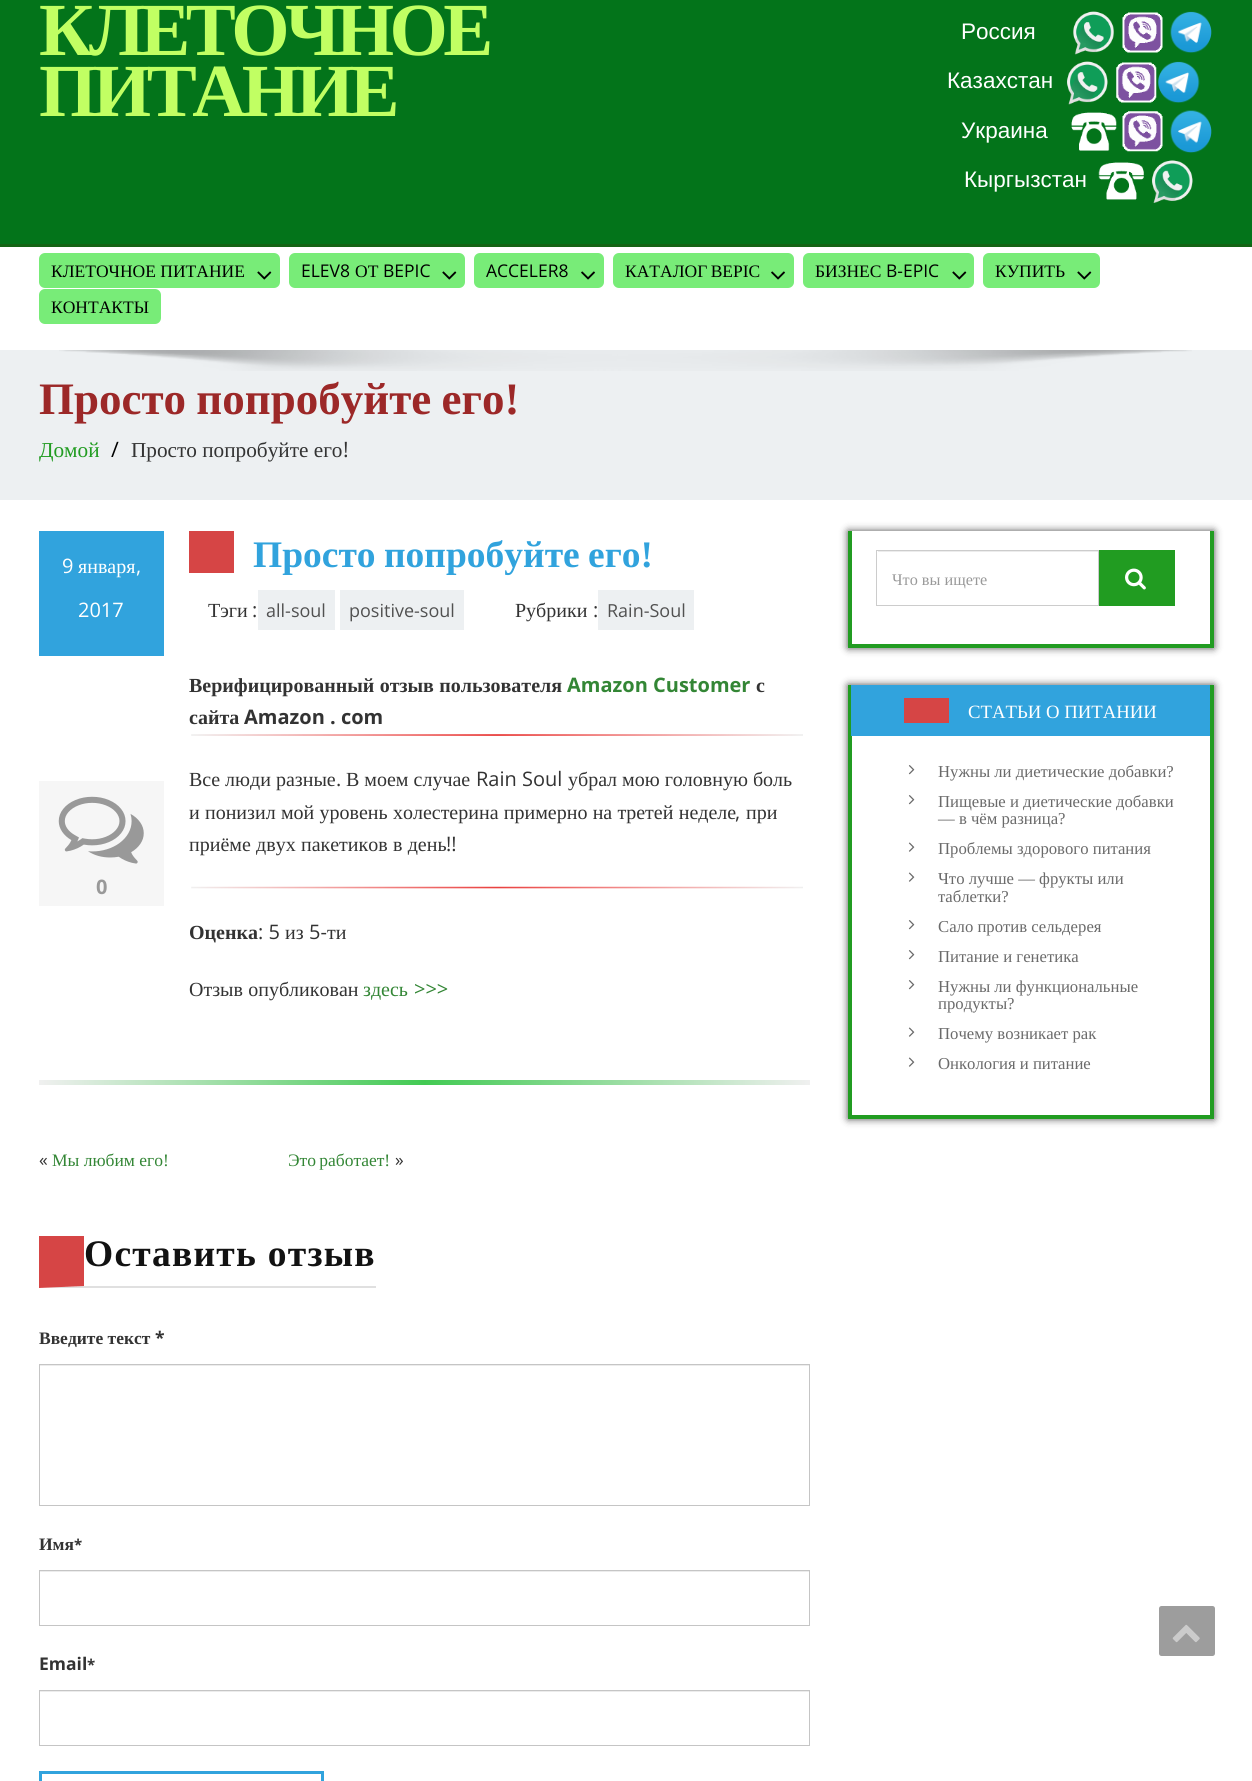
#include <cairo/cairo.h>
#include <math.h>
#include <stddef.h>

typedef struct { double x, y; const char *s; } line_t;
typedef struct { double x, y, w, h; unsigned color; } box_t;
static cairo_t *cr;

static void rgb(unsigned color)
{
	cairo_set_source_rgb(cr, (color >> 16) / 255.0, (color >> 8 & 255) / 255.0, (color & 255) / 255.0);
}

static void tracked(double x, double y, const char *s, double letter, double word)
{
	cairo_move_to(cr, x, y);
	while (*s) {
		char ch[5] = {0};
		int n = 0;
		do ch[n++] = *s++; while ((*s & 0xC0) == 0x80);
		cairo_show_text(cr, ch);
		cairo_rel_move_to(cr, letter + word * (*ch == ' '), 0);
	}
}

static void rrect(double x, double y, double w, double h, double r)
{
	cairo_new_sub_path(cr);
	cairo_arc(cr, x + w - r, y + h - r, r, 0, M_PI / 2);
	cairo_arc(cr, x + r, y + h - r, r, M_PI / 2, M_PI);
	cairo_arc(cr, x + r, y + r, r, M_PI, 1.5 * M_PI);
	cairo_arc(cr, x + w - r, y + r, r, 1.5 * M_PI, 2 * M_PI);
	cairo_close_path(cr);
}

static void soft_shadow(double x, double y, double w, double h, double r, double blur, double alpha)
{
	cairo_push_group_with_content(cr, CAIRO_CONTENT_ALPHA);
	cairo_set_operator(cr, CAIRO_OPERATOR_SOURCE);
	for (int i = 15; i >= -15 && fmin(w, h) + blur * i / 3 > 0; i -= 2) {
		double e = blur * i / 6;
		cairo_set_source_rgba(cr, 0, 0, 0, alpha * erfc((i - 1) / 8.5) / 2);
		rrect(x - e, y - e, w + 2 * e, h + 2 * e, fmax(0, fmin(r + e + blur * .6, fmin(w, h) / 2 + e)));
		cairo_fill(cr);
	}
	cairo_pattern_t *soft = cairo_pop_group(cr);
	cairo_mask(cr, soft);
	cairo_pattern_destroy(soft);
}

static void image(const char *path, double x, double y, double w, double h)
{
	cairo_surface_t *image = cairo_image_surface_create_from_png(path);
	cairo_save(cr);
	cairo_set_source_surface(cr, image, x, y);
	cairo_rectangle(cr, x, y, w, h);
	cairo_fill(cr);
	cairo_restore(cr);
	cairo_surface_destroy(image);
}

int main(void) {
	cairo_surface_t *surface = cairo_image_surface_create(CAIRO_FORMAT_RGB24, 1252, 1781);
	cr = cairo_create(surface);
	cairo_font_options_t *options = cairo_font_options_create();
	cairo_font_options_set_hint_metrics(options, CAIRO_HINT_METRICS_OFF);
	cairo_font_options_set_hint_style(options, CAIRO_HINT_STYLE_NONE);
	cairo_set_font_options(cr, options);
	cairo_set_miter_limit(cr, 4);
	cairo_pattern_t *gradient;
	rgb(0xffffff);
	cairo_paint(cr);
	rgb(0x03741a);
	cairo_rectangle(cr, 0, 0, 1252, 244);
	cairo_fill(cr);
	image("img/1.png", 1073, 11, 41, 44);
	image("img/2.png", 1122, 12, 41, 41);
	image("img/3.png", 1170, 11, 42, 42);
	image("img/4.png", 1067, 61, 41, 44);
	image("img/5.png", 1116, 62, 41, 41);
	image("img/6.png", 1158, 61, 42, 42);
	image("img/7.png", 1071, 112, 46, 39);
	image("img/8.png", 1122, 111, 41, 41);
	image("img/9.png", 1170, 110, 42, 43);
	image("img/10.png", 1098, 162, 46, 38);
	image("img/11.png", 1152, 160, 41, 43);
	rgb(0x146414);
	cairo_rectangle(cr, 0, 244, 1252, 3);
	cairo_fill(cr);
	rgb(0x78ec78);
	rrect(39, 253, 241, 35, 6);
	cairo_fill(cr);
	image("img/12.png", 257, 271, 15, 9);
	rrect(289, 253, 176, 35, 6);
	cairo_fill(cr);
	image("img/12.png", 442, 271, 15, 9);
	rrect(474, 253, 130, 35, 6);
	cairo_fill(cr);
	image("img/13.png", 581, 271, 14, 9);
	rrect(613, 253, 181, 35, 6);
	cairo_fill(cr);
	image("img/13.png", 771, 271, 14, 9);
	rrect(803, 253, 171, 35, 6);
	cairo_fill(cr);
	image("img/12.png", 952, 271, 15, 9);
	rrect(983, 253, 117, 35, 6);
	cairo_fill(cr);
	image("img/12.png", 1077, 271, 15, 9);
	rrect(39, 289, 122, 35, 6);
	cairo_fill(cr);
	rgb(0xedf0f2);
	cairo_rectangle(cr, 0, 350, 1252, 150);
	cairo_fill(cr);
	image("img/14.png", 59, 350, 1133, 21);
	rgb(0x31a3dd);
	cairo_rectangle(cr, 39, 531, 125, 125);
	cairo_fill(cr);
	rgb(0xf6f6f6);
	cairo_rectangle(cr, 39, 781, 125, 125);
	cairo_fill(cr);
	image("img/15.png", 58, 796, 86, 68);
	{
		static const box_t items[] = {
			{189, 531, 45, 42, 0xd64545},
			{258, 590, 77, 40, 0xedf0f2},
			{340, 590, 124, 40, 0xedf0f2},
			{598, 590, 96, 40, 0xedf0f2},
		};
		for (size_t i = 0; i < sizeof items / sizeof *items; i++) {
			rgb(items[i].color);
			cairo_rectangle(cr, items[i].x, items[i].y, items[i].w, items[i].h);
			cairo_fill(cr);
		}
	}
	image("img/16.png", 191, 734, 612, 2);
	image("img/17.png", 191, 886, 612, 3);
	gradient = cairo_pattern_create_linear(39, 1083, 810, 1083);
	cairo_pattern_add_color_stop_rgba(gradient, 0, 0.941, 0.941, 0.941, 1);
	cairo_pattern_add_color_stop_rgba(gradient, 0.5, 0.259, 0.792, 0.325, 1);
	cairo_pattern_add_color_stop_rgba(gradient, 1, 0.941, 0.941, 0.941, 1);
	cairo_set_source(cr, gradient);
	cairo_pattern_destroy(gradient);
	cairo_rectangle(cr, 39, 1080, 771, 5);
	cairo_fill(cr);
	rgb(0xe0e0e0);
	cairo_new_path(cr);
	cairo_move_to(cr, 376, 1288);
	cairo_line_to(cr, 39, 1288);
	cairo_line_to(cr, 84, 1286);
	cairo_line_to(cr, 376, 1286);
	cairo_close_path(cr);
	cairo_fill(cr);
	rgb(0xd64545);
	cairo_new_path(cr);
	cairo_move_to(cr, 39, 1288);
	cairo_line_to(cr, 39, 1236);
	cairo_line_to(cr, 84, 1236);
	cairo_line_to(cr, 84, 1286);
	cairo_close_path(cr);
	cairo_fill(cr);
	rgb(0xececec);
	cairo_rectangle(cr, 40, 1365, 769, 1);
	cairo_fill(cr);
	cairo_rectangle(cr, 39.5, 1364.5, 770, 141);
	rgb(0xc5c5c5);
	cairo_set_line_width(cr, 1);
	cairo_stroke(cr);
	rgb(0xececec);
	cairo_rectangle(cr, 40, 1571, 769, 1);
	cairo_fill(cr);
	cairo_rectangle(cr, 39.5, 1570.5, 770, 55);
	rgb(0xc5c5c5);
	cairo_stroke(cr);
	rgb(0xececec);
	cairo_rectangle(cr, 40, 1691, 769, 1);
	cairo_fill(cr);
	cairo_rectangle(cr, 39.5, 1690.5, 770, 55);
	rgb(0xc5c5c5);
	cairo_stroke(cr);
	cairo_rectangle(cr, 40.5, 1772.5, 282, 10);
	rgb(0x31a3dd);
	cairo_set_line_width(cr, 3);
	cairo_stroke(cr);
	rgb(0x000000);
	soft_shadow(848, 531, 366, 117, 0, 4, 0.7);
	{
		static const box_t items[] = {
			{852, 531, 358, 113, 0xffffff},
			{1210, 531, 4, 117, 0x219c21},
			{848, 644, 366, 4, 0x219c21},
			{848, 531, 4, 117, 0x219c21},
			{878, 551, 220, 1, 0xececec},
		};
		for (size_t i = 0; i < sizeof items / sizeof *items; i++) {
			rgb(items[i].color);
			cairo_rectangle(cr, items[i].x, items[i].y, items[i].w, items[i].h);
			cairo_fill(cr);
		}
	}
	cairo_rectangle(cr, 876.5, 550.5, 222, 55);
	rgb(0xcccccc);
	cairo_set_line_width(cr, 1);
	cairo_stroke(cr);
	rgb(0x219c21);
	cairo_rectangle(cr, 1099, 550, 76, 56);
	cairo_fill(cr);
	image("img/18.png", 1125, 568, 21, 22);
	rgb(0x000000);
	soft_shadow(848, 685, 366, 434, 0, 4, 0.7);
	{
		static const box_t items[] = {
			{852, 736, 358, 379, 0xffffff},
			{1210, 685, 4, 434, 0x219c21},
			{848, 1115, 366, 4, 0x219c21},
			{848, 685, 4, 434, 0x219c21},
			{851, 685, 359, 51, 0x31a3dd},
			{904, 698, 45, 25, 0xd64545},
		};
		for (size_t i = 0; i < sizeof items / sizeof *items; i++) {
			rgb(items[i].color);
			cairo_rectangle(cr, items[i].x, items[i].y, items[i].w, items[i].h);
			cairo_fill(cr);
		}
	}
	image("img/19.png", 908, 765, 7, 10);
	image("img/19.png", 908, 795, 7, 10);
	image("img/20.png", 908, 842, 7, 10);
	image("img/20.png", 908, 872, 7, 10);
	image("img/19.png", 908, 920, 7, 10);
	image("img/19.png", 908, 950, 7, 10);
	image("img/19.png", 908, 980, 7, 10);
	image("img/20.png", 908, 1027, 7, 10);
	image("img/20.png", 908, 1057, 7, 10);
	rgb(0x9d9d9d);
	rrect(1159, 1606, 56, 50, 2.5);
	cairo_fill(cr);
	image("img/21.png", 1172, 1624, 28, 19);
	cairo_select_font_face(cr, "Liberation Serif", CAIRO_FONT_SLANT_NORMAL, CAIRO_FONT_WEIGHT_BOLD);
	cairo_set_font_size(cr, 75);
	rgb(0xc1ff63);
	tracked(39, 55, "КЛЕТОЧНОЕ", -4.5, 0);
	tracked(39, 116, "ПИТАНИЕ", -4.5, 0);
	cairo_select_font_face(cr, "Liberation Sans", CAIRO_FONT_SLANT_NORMAL, CAIRO_FONT_WEIGHT_NORMAL);
	cairo_set_font_size(cr, 22.5);
	rgb(0xffffff);
	{
		static const line_t items[] = {
			{961, 39, "Россия"},
			{947, 88, "Казахстан"},
			{961, 138, "Украина"},
			{964, 187, "Кыргызстан"},
		};
		for (size_t i = 0; i < sizeof items / sizeof *items; i++) {
			cairo_move_to(cr, items[i].x, items[i].y);
			cairo_show_text(cr, items[i].s);
		}
	}
	cairo_select_font_face(cr, "Liberation Serif", CAIRO_FONT_SLANT_NORMAL, CAIRO_FONT_WEIGHT_NORMAL);
	cairo_set_font_size(cr, 17.5);
	rgb(0x000000);
	cairo_move_to(cr, 51, 277);
	cairo_show_text(cr, "КЛЕТОЧНОЕ ПИТАНИЕ");
	cairo_select_font_face(cr, "Open Sans", CAIRO_FONT_SLANT_NORMAL, CAIRO_FONT_WEIGHT_NORMAL);
	cairo_move_to(cr, 301, 277);
	cairo_show_text(cr, "ELEV8");
	cairo_select_font_face(cr, "Liberation Serif", CAIRO_FONT_SLANT_NORMAL, CAIRO_FONT_WEIGHT_NORMAL);
	cairo_move_to(cr, 355, 277);
	cairo_show_text(cr, "ОТ");
	cairo_select_font_face(cr, "Open Sans", CAIRO_FONT_SLANT_NORMAL, CAIRO_FONT_WEIGHT_NORMAL);
	cairo_move_to(cr, 383, 277);
	cairo_show_text(cr, "BEPIC");
	cairo_move_to(cr, 486, 277);
	cairo_show_text(cr, "ACCELER8");
	cairo_select_font_face(cr, "Liberation Serif", CAIRO_FONT_SLANT_NORMAL, CAIRO_FONT_WEIGHT_NORMAL);
	tracked(625, 277, "КАТАЛОГ BEPIC", 0, -1);
	cairo_move_to(cr, 815, 277);
	cairo_show_text(cr, "БИЗНЕС");
	cairo_select_font_face(cr, "Open Sans", CAIRO_FONT_SLANT_NORMAL, CAIRO_FONT_WEIGHT_NORMAL);
	cairo_move_to(cr, 886, 277);
	cairo_show_text(cr, "B-EPIC");
	cairo_select_font_face(cr, "Liberation Serif", CAIRO_FONT_SLANT_NORMAL, CAIRO_FONT_WEIGHT_NORMAL);
	cairo_move_to(cr, 995, 277);
	cairo_show_text(cr, "КУПИТЬ");
	cairo_move_to(cr, 51, 313);
	cairo_show_text(cr, "КОНТАКТЫ");
	cairo_select_font_face(cr, "Liberation Serif", CAIRO_FONT_SLANT_NORMAL, CAIRO_FONT_WEIGHT_BOLD);
	cairo_set_font_size(cr, 45);
	rgb(0x9c2828);
	tracked(39, 414, "Просто попробуйте его!", 0, -1);
	cairo_select_font_face(cr, "Liberation Serif", CAIRO_FONT_SLANT_NORMAL, CAIRO_FONT_WEIGHT_NORMAL);
	cairo_set_font_size(cr, 21.25);
	rgb(0x219c21);
	cairo_move_to(cr, 39, 457);
	cairo_show_text(cr, "Домой");
	cairo_select_font_face(cr, "Open Sans", CAIRO_FONT_SLANT_NORMAL, CAIRO_FONT_WEIGHT_NORMAL);
	rgb(0x000000);
	cairo_move_to(cr, 111, 457);
	cairo_show_text(cr, "/");
	cairo_select_font_face(cr, "Liberation Serif", CAIRO_FONT_SLANT_NORMAL, CAIRO_FONT_WEIGHT_NORMAL);
	rgb(0x333333);
	cairo_move_to(cr, 131, 457);
	cairo_show_text(cr, "Просто попробуйте его");
	cairo_select_font_face(cr, "Open Sans", CAIRO_FONT_SLANT_NORMAL, CAIRO_FONT_WEIGHT_NORMAL);
	cairo_move_to(cr, 343, 457);
	cairo_show_text(cr, "!");
	cairo_set_font_size(cr, 20);
	rgb(0xffffff);
	cairo_move_to(cr, 62, 573);
	cairo_show_text(cr, "9");
	cairo_select_font_face(cr, "Liberation Serif", CAIRO_FONT_SLANT_NORMAL, CAIRO_FONT_WEIGHT_NORMAL);
	cairo_move_to(cr, 78, 573);
	cairo_show_text(cr, "января");
	cairo_select_font_face(cr, "Open Sans", CAIRO_FONT_SLANT_NORMAL, CAIRO_FONT_WEIGHT_NORMAL);
	cairo_move_to(cr, 136, 573);
	cairo_show_text(cr, ",");
	cairo_move_to(cr, 78, 617);
	cairo_show_text(cr, "2017");
	cairo_select_font_face(cr, "Open Sans", CAIRO_FONT_SLANT_NORMAL, CAIRO_FONT_WEIGHT_BOLD);
	rgb(0x999999);
	cairo_move_to(cr, 96, 894);
	cairo_show_text(cr, "0");
	cairo_select_font_face(cr, "Liberation Serif", CAIRO_FONT_SLANT_NORMAL, CAIRO_FONT_WEIGHT_BOLD);
	cairo_set_font_size(cr, 37.5);
	rgb(0x31a3dd);
	tracked(253, 567, "Просто попробуйте его!", 0, -1);
	cairo_select_font_face(cr, "Liberation Serif", CAIRO_FONT_SLANT_NORMAL, CAIRO_FONT_WEIGHT_NORMAL);
	cairo_set_font_size(cr, 20);
	rgb(0x333333);
	cairo_move_to(cr, 208, 617);
	cairo_show_text(cr, "Тэги");
	cairo_select_font_face(cr, "Open Sans", CAIRO_FONT_SLANT_NORMAL, CAIRO_FONT_WEIGHT_NORMAL);
	cairo_move_to(cr, 252, 617);
	cairo_show_text(cr, ":");
	cairo_set_font_size(cr, 18);
	rgb(0x515151);
	cairo_move_to(cr, 266, 617);
	cairo_show_text(cr, "all-soul");
	cairo_move_to(cr, 349, 617);
	cairo_show_text(cr, "positive-soul");
	cairo_select_font_face(cr, "Liberation Serif", CAIRO_FONT_SLANT_NORMAL, CAIRO_FONT_WEIGHT_NORMAL);
	cairo_set_font_size(cr, 20);
	rgb(0x333333);
	cairo_move_to(cr, 515, 617);
	cairo_show_text(cr, "Рубрики");
	cairo_select_font_face(cr, "Open Sans", CAIRO_FONT_SLANT_NORMAL, CAIRO_FONT_WEIGHT_NORMAL);
	cairo_move_to(cr, 593, 617);
	cairo_show_text(cr, ":");
	cairo_set_font_size(cr, 18);
	rgb(0x515151);
	cairo_move_to(cr, 607, 617);
	cairo_show_text(cr, "Rain-Soul");
	cairo_select_font_face(cr, "Liberation Serif", CAIRO_FONT_SLANT_NORMAL, CAIRO_FONT_WEIGHT_BOLD);
	cairo_set_font_size(cr, 20);
	rgb(0x333333);
	tracked(189, 692, "Верифицированный отзыв пользователя", 0, 0.25);
	cairo_select_font_face(cr, "Open Sans", CAIRO_FONT_SLANT_NORMAL, CAIRO_FONT_WEIGHT_BOLD);
	rgb(0x338635);
	cairo_move_to(cr, 567, 692);
	cairo_show_text(cr, "Amazon Customer");
	cairo_select_font_face(cr, "Liberation Serif", CAIRO_FONT_SLANT_NORMAL, CAIRO_FONT_WEIGHT_BOLD);
	rgb(0x333333);
	cairo_move_to(cr, 756, 692);
	cairo_show_text(cr, "с");
	cairo_move_to(cr, 189, 724);
	cairo_show_text(cr, "сайта");
	cairo_select_font_face(cr, "Open Sans", CAIRO_FONT_SLANT_NORMAL, CAIRO_FONT_WEIGHT_BOLD);
	cairo_move_to(cr, 244, 724);
	cairo_show_text(cr, "Amazon . com");
	cairo_select_font_face(cr, "Liberation Serif", CAIRO_FONT_SLANT_NORMAL, CAIRO_FONT_WEIGHT_NORMAL);
	cairo_move_to(cr, 189, 786);
	cairo_show_text(cr, "Все люди разные");
	cairo_select_font_face(cr, "Open Sans", CAIRO_FONT_SLANT_NORMAL, CAIRO_FONT_WEIGHT_NORMAL);
	cairo_move_to(cr, 336, 786);
	cairo_show_text(cr, ".");
	cairo_select_font_face(cr, "Liberation Serif", CAIRO_FONT_SLANT_NORMAL, CAIRO_FONT_WEIGHT_NORMAL);
	cairo_move_to(cr, 346, 786);
	cairo_show_text(cr, "В моем случае");
	cairo_select_font_face(cr, "Open Sans", CAIRO_FONT_SLANT_NORMAL, CAIRO_FONT_WEIGHT_NORMAL);
	cairo_move_to(cr, 476, 786);
	cairo_show_text(cr, "Rain Soul");
	cairo_select_font_face(cr, "Liberation Serif", CAIRO_FONT_SLANT_NORMAL, CAIRO_FONT_WEIGHT_NORMAL);
	cairo_move_to(cr, 568, 786);
	cairo_show_text(cr, "убрал мою головную боль");
	tracked(189, 819, "и понизил мой уровень холестерина примерно на третей неделе", 0, 0.25);
	cairo_select_font_face(cr, "Open Sans", CAIRO_FONT_SLANT_NORMAL, CAIRO_FONT_WEIGHT_NORMAL);
	cairo_move_to(cr, 735, 819);
	cairo_show_text(cr, ",");
	cairo_select_font_face(cr, "Liberation Serif", CAIRO_FONT_SLANT_NORMAL, CAIRO_FONT_WEIGHT_NORMAL);
	cairo_move_to(cr, 746, 819);
	cairo_show_text(cr, "при");
	tracked(189, 851, "приёме двух пакетиков в день", 0, 0.25);
	cairo_select_font_face(cr, "Open Sans", CAIRO_FONT_SLANT_NORMAL, CAIRO_FONT_WEIGHT_NORMAL);
	cairo_move_to(cr, 446, 851);
	cairo_show_text(cr, "!!");
	cairo_select_font_face(cr, "Liberation Serif", CAIRO_FONT_SLANT_NORMAL, CAIRO_FONT_WEIGHT_BOLD);
	cairo_move_to(cr, 189, 939);
	cairo_show_text(cr, "Оценка");
	cairo_select_font_face(cr, "Open Sans", CAIRO_FONT_SLANT_NORMAL, CAIRO_FONT_WEIGHT_NORMAL);
	cairo_move_to(cr, 258, 939);
	cairo_show_text(cr, ": 5");
	cairo_select_font_face(cr, "Liberation Serif", CAIRO_FONT_SLANT_NORMAL, CAIRO_FONT_WEIGHT_NORMAL);
	cairo_move_to(cr, 285, 939);
	cairo_show_text(cr, "из");
	cairo_select_font_face(cr, "Open Sans", CAIRO_FONT_SLANT_NORMAL, CAIRO_FONT_WEIGHT_NORMAL);
	cairo_move_to(cr, 309, 939);
	cairo_show_text(cr, "5-");
	cairo_select_font_face(cr, "Liberation Serif", CAIRO_FONT_SLANT_NORMAL, CAIRO_FONT_WEIGHT_NORMAL);
	cairo_move_to(cr, 327, 939);
	cairo_show_text(cr, "ти");
	tracked(189, 996, "Отзыв опубликован", 0, 0.25);
	rgb(0x338635);
	cairo_move_to(cr, 363, 996);
	cairo_show_text(cr, "здесь");
	cairo_select_font_face(cr, "Open Sans", CAIRO_FONT_SLANT_NORMAL, CAIRO_FONT_WEIGHT_NORMAL);
	cairo_move_to(cr, 414, 996);
	cairo_show_text(cr, ">>>");
	cairo_set_font_size(cr, 17.5);
	rgb(0x333333);
	cairo_move_to(cr, 39, 1166);
	cairo_show_text(cr, "«");
	cairo_select_font_face(cr, "Liberation Serif", CAIRO_FONT_SLANT_NORMAL, CAIRO_FONT_WEIGHT_NORMAL);
	rgb(0x338635);
	cairo_move_to(cr, 52, 1166);
	cairo_show_text(cr, "Мы любим его!");
	tracked(288, 1166, "Это работает!", 0, -1);
	cairo_select_font_face(cr, "Open Sans", CAIRO_FONT_SLANT_NORMAL, CAIRO_FONT_WEIGHT_NORMAL);
	rgb(0x333333);
	cairo_move_to(cr, 395, 1166);
	cairo_show_text(cr, "»");
	cairo_select_font_face(cr, "Liberation Serif", CAIRO_FONT_SLANT_NORMAL, CAIRO_FONT_WEIGHT_BOLD);
	cairo_set_font_size(cr, 37.5);
	rgb(0x121212);
	tracked(84, 1266, "Оставить отзыв", 1.25, 0);
	cairo_set_font_size(cr, 17.5);
	rgb(0x333333);
	cairo_move_to(cr, 39, 1344);
	cairo_show_text(cr, "Введите текст");
	cairo_select_font_face(cr, "Open Sans", CAIRO_FONT_SLANT_NORMAL, CAIRO_FONT_WEIGHT_BOLD);
	cairo_move_to(cr, 155, 1344);
	cairo_show_text(cr, "*");
	cairo_select_font_face(cr, "Liberation Serif", CAIRO_FONT_SLANT_NORMAL, CAIRO_FONT_WEIGHT_BOLD);
	cairo_move_to(cr, 39, 1550);
	cairo_show_text(cr, "Имя");
	cairo_select_font_face(cr, "Open Sans", CAIRO_FONT_SLANT_NORMAL, CAIRO_FONT_WEIGHT_BOLD);
	cairo_set_font_size(cr, 15);
	cairo_move_to(cr, 74, 1550);
	cairo_show_text(cr, "*");
	cairo_set_font_size(cr, 17.5);
	cairo_move_to(cr, 39, 1670);
	cairo_show_text(cr, "Email");
	cairo_set_font_size(cr, 15);
	cairo_move_to(cr, 87, 1670);
	cairo_show_text(cr, "*");
	cairo_select_font_face(cr, "Liberation Serif", CAIRO_FONT_SLANT_NORMAL, CAIRO_FONT_WEIGHT_NORMAL);
	cairo_set_font_size(cr, 16.25);
	rgb(0x999999);
	cairo_move_to(cr, 892, 585);
	cairo_show_text(cr, "Что вы ищете");
	cairo_set_font_size(cr, 18.75);
	rgb(0xffffff);
	cairo_move_to(cr, 968, 718);
	cairo_show_text(cr, "СТАТЬИ О ПИТАНИИ");
	cairo_set_font_size(cr, 16.7);
	rgb(0x6a6a6a);
	{
		static const line_t items[] = {
			{938, 777, "Нужны ли диетические добавки?"},
			{938, 807, "Пищевые и диетические добавки"},
			{938, 824, "— в чём разница?"},
			{938, 854, "Проблемы здорового питания"},
			{938, 884, "Что лучше — фрукты или"},
			{938, 902, "таблетки?"},
			{938, 932, "Сало против сельдерея"},
			{938, 962, "Питание и генетика"},
			{938, 992, "Нужны ли функциональные"},
			{938, 1009, "продукты?"},
			{938, 1039, "Почему возникает рак"},
			{938, 1069, "Онкология и питание"},
		};
		for (size_t i = 0; i < sizeof items / sizeof *items; i++) {
			cairo_move_to(cr, items[i].x, items[i].y);
			cairo_show_text(cr, items[i].s);
		}
	}
	cairo_surface_write_to_png(surface, "page.png");
	cairo_font_options_destroy(options);
	cairo_destroy(cr);
	cairo_surface_destroy(surface);
	return 0;
}
